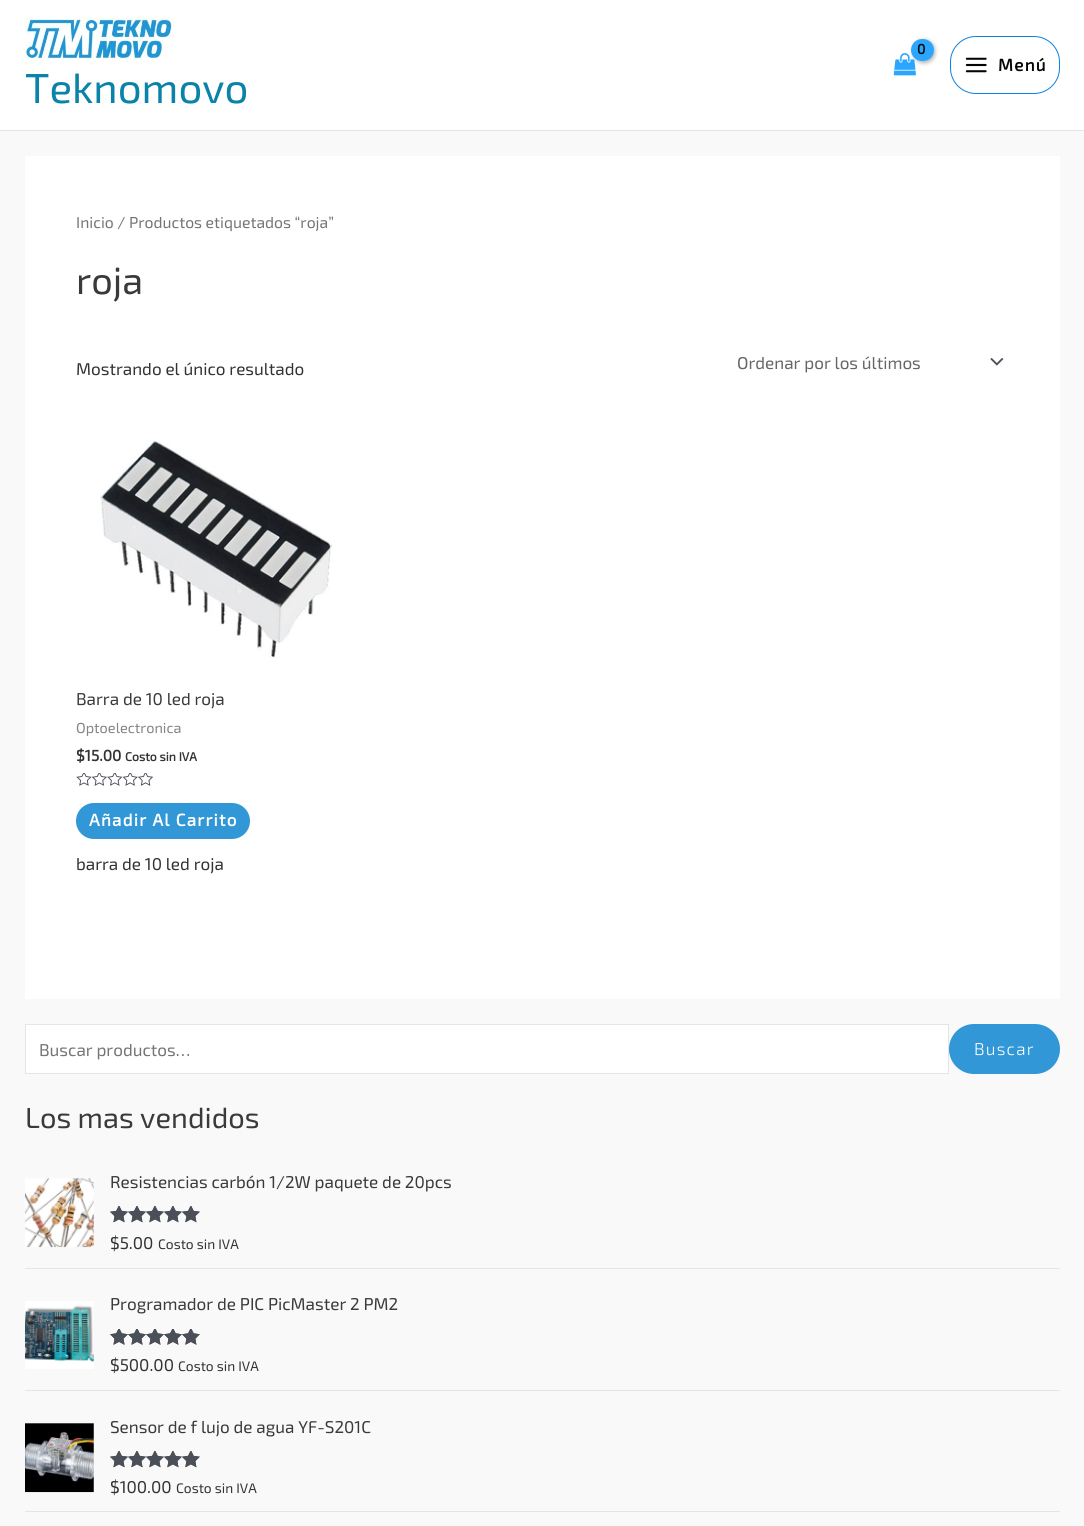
#include <cairo/cairo.h>
#include <math.h>
#include <stddef.h>

static cairo_t *cr;

static void rgb(unsigned color)
{
	cairo_set_source_rgb(cr, (color >> 16) / 255.0, (color >> 8 & 255) / 255.0, (color & 255) / 255.0);
}

static void tracked(double x, double y, const char *s, double letter, double word)
{
	cairo_move_to(cr, x, y);
	while (*s) {
		char ch[5] = {0};
		int n = 0;
		do ch[n++] = *s++; while ((*s & 0xC0) == 0x80);
		cairo_show_text(cr, ch);
		cairo_rel_move_to(cr, letter + word * (*ch == ' '), 0);
	}
}

static void rrect(double x, double y, double w, double h, double r)
{
	cairo_new_sub_path(cr);
	cairo_arc(cr, x + w - r, y + h - r, r, 0, M_PI / 2);
	cairo_arc(cr, x + r, y + h - r, r, M_PI / 2, M_PI);
	cairo_arc(cr, x + r, y + r, r, M_PI, 1.5 * M_PI);
	cairo_arc(cr, x + w - r, y + r, r, 1.5 * M_PI, 2 * M_PI);
	cairo_close_path(cr);
}

static void soft_shadow(double x, double y, double w, double h, double r, double blur, double alpha)
{
	cairo_push_group_with_content(cr, CAIRO_CONTENT_ALPHA);
	cairo_set_operator(cr, CAIRO_OPERATOR_SOURCE);
	for (int i = 15; i >= -15 && fmin(w, h) + blur * i / 3 > 0; i -= 2) {
		double e = blur * i / 6;
		cairo_set_source_rgba(cr, 0, 0, 0, alpha * erfc((i - 1) / 8.5) / 2);
		rrect(x - e, y - e, w + 2 * e, h + 2 * e, fmax(0, fmin(r + e + blur * .6, fmin(w, h) / 2 + e)));
		cairo_fill(cr);
	}
	cairo_pattern_t *soft = cairo_pop_group(cr);
	cairo_mask(cr, soft);
	cairo_pattern_destroy(soft);
}

static void image(const char *path, double x, double y, double w, double h)
{
	cairo_surface_t *image = cairo_image_surface_create_from_png(path);
	cairo_save(cr);
	cairo_set_source_surface(cr, image, x, y);
	cairo_rectangle(cr, x, y, w, h);
	cairo_fill(cr);
	cairo_restore(cr);
	cairo_surface_destroy(image);
}

int main(void) {
	cairo_surface_t *surface = cairo_image_surface_create(CAIRO_FORMAT_RGB24, 1084, 1526);
	cr = cairo_create(surface);
	cairo_font_options_t *options = cairo_font_options_create();
	cairo_font_options_set_hint_metrics(options, CAIRO_HINT_METRICS_OFF);
	cairo_font_options_set_hint_style(options, CAIRO_HINT_STYLE_NONE);
	cairo_set_font_options(cr, options);
	cairo_set_miter_limit(cr, 4);
	rgb(0xf9f9f9);
	cairo_paint(cr);
	rgb(0xffffff);
	cairo_rectangle(cr, 0, 0, 1084, 130);
	cairo_fill(cr);
	rgb(0xe5e5e5);
	cairo_rectangle(cr, 0, 130, 1084, 1);
	cairo_fill(cr);
	image("img/1.png", 893, 53, 23, 23);
	rgb(0x000000);
	soft_shadow(913, 40, 22, 23, 11, 2, 0.3);
	rgb(0x2aa6ff);
	rrect(911, 39, 23, 22, 11);
	cairo_fill(cr);
	rrect(950.5, 36.5, 109, 57, 25.5);
	rgb(0x0c82e2);
	cairo_set_line_width(cr, 1);
	cairo_stroke(cr);
	image("img/2.png", 965, 57, 22, 16);
	image("img/3.png", 25, 17, 149, 42);
	rgb(0xffffff);
	cairo_rectangle(cr, 25, 156, 1035, 843);
	cairo_fill(cr);
	image("img/4.png", 990, 358, 14, 8);
	image("img/5.png", 100, 440, 233, 218);
	image("img/6.png", 76, 773, 78, 13);
	rgb(0x3197d6);
	rrect(76, 803, 174, 36, 18);
	cairo_fill(cr);
	rgb(0xffffff);
	cairo_rectangle(cr, 25.5, 1024.5, 923, 49);
	cairo_fill_preserve(cr);
	rgb(0xe5e5e5);
	cairo_stroke(cr);
	rgb(0x3197d6);
	rrect(949, 1024, 111, 50, 25);
	cairo_fill(cr);
	rgb(0xe5e5e5);
	cairo_rectangle(cr, 25, 1268, 1035, 1);
	cairo_fill(cr);
	image("img/7.png", 25, 1178, 69, 70);
	image("img/8.png", 110, 1206, 90, 17);
	image("img/9.png", 110, 1206, 90, 17);
	cairo_rectangle(cr, 25, 1390, 1035, 1);
	cairo_fill(cr);
	image("img/10.png", 25, 1301, 69, 68);
	image("img/11.png", 110, 1329, 90, 16);
	image("img/12.png", 110, 1329, 90, 16);
	cairo_rectangle(cr, 25, 1511, 1035, 1);
	cairo_fill(cr);
	image("img/13.png", 25, 1423, 69, 70);
	image("img/8.png", 110, 1451, 90, 17);
	image("img/9.png", 110, 1451, 90, 17);
	cairo_select_font_face(cr, "Exo 2", CAIRO_FONT_SLANT_NORMAL, CAIRO_FONT_WEIGHT_BOLD);
	cairo_set_font_size(cr, 14);
	rgb(0x050505);
	tracked(917, 54, "0", -1, 0);
	cairo_set_font_size(cr, 17.1);
	tracked(998, 71, "Menú", 1.25, 0);
	cairo_select_font_face(cr, "Exo 2", CAIRO_FONT_SLANT_NORMAL, CAIRO_FONT_WEIGHT_NORMAL);
	cairo_set_font_size(cr, 42);
	rgb(0x0b83a8);
	cairo_move_to(cr, 25, 103);
	cairo_show_text(cr, "Teknomovo");
	cairo_set_font_size(cr, 15.75);
	rgb(0x757575);
	cairo_move_to(cr, 76, 228);
	cairo_show_text(cr, "Inicio / Productos etiquetados “roja”");
	cairo_set_font_size(cr, 38);
	rgb(0x3a3a3a);
	cairo_move_to(cr, 76, 294);
	cairo_show_text(cr, "roja");
	cairo_set_font_size(cr, 17.1);
	rgb(0x333333);
	cairo_move_to(cr, 76, 375);
	cairo_show_text(cr, "Mostrando el único resultado");
	rgb(0x666666);
	cairo_move_to(cr, 737, 369);
	cairo_show_text(cr, "Ordenar por los últimos");
	rgb(0x3a3a3a);
	cairo_move_to(cr, 76, 705);
	cairo_show_text(cr, "Barra de 10 led roja");
	cairo_set_font_size(cr, 14.5);
	rgb(0x858585);
	cairo_move_to(cr, 76, 733);
	cairo_show_text(cr, "Optoelectronica");
	cairo_select_font_face(cr, "Exo 2", CAIRO_FONT_SLANT_NORMAL, CAIRO_FONT_WEIGHT_BOLD);
	cairo_set_font_size(cr, 15.5);
	rgb(0x333333);
	cairo_move_to(cr, 76, 761);
	cairo_show_text(cr, "$15.00");
	cairo_set_font_size(cr, 12.25);
	cairo_move_to(cr, 125, 761);
	cairo_show_text(cr, "Costo sin IVA");
	cairo_set_font_size(cr, 17.1);
	rgb(0xffffff);
	tracked(89, 826, "Añadir Al Carrito", 1.25, 0);
	cairo_select_font_face(cr, "Exo 2", CAIRO_FONT_SLANT_NORMAL, CAIRO_FONT_WEIGHT_NORMAL);
	rgb(0x333333);
	cairo_move_to(cr, 76, 870);
	cairo_show_text(cr, "barra de 10 led roja");
	rgb(0x757575);
	cairo_move_to(cr, 39, 1056);
	cairo_show_text(cr, "Buscar productos…");
	cairo_select_font_face(cr, "Exo 2 Light", CAIRO_FONT_SLANT_NORMAL, CAIRO_FONT_WEIGHT_NORMAL);
	rgb(0xffffff);
	tracked(974, 1055, "Buscar", 1.25, 0);
	cairo_select_font_face(cr, "Exo 2", CAIRO_FONT_SLANT_NORMAL, CAIRO_FONT_WEIGHT_NORMAL);
	cairo_set_font_size(cr, 29);
	rgb(0x3a3a3a);
	cairo_move_to(cr, 25, 1128);
	cairo_show_text(cr, "Los mas vendidos");
	cairo_set_font_size(cr, 17.1);
	cairo_move_to(cr, 110, 1188);
	cairo_show_text(cr, "Resistencias carbón 1/2W paquete de 20pcs");
	rgb(0x333333);
	cairo_move_to(cr, 110, 1249);
	cairo_show_text(cr, "$5.00");
	cairo_set_font_size(cr, 13.75);
	cairo_move_to(cr, 158, 1249);
	cairo_show_text(cr, "Costo sin IVA");
	cairo_set_font_size(cr, 17.1);
	rgb(0x3a3a3a);
	cairo_move_to(cr, 110, 1310);
	cairo_show_text(cr, "Programador de PIC PicMaster 2 PM2");
	rgb(0x333333);
	cairo_move_to(cr, 110, 1371);
	cairo_show_text(cr, "$500.00");
	cairo_set_font_size(cr, 13.75);
	cairo_move_to(cr, 178, 1371);
	cairo_show_text(cr, "Costo sin IVA");
	cairo_set_font_size(cr, 17.1);
	rgb(0x3a3a3a);
	cairo_move_to(cr, 110, 1433);
	cairo_show_text(cr, "Sensor de f lujo de agua YF-S201C");
	rgb(0x333333);
	cairo_move_to(cr, 110, 1493);
	cairo_show_text(cr, "$100.00");
	cairo_set_font_size(cr, 13.75);
	cairo_move_to(cr, 176, 1493);
	cairo_show_text(cr, "Costo sin IVA");
	cairo_surface_write_to_png(surface, "page.png");
	cairo_font_options_destroy(options);
	cairo_destroy(cr);
	cairo_surface_destroy(surface);
	return 0;
}
